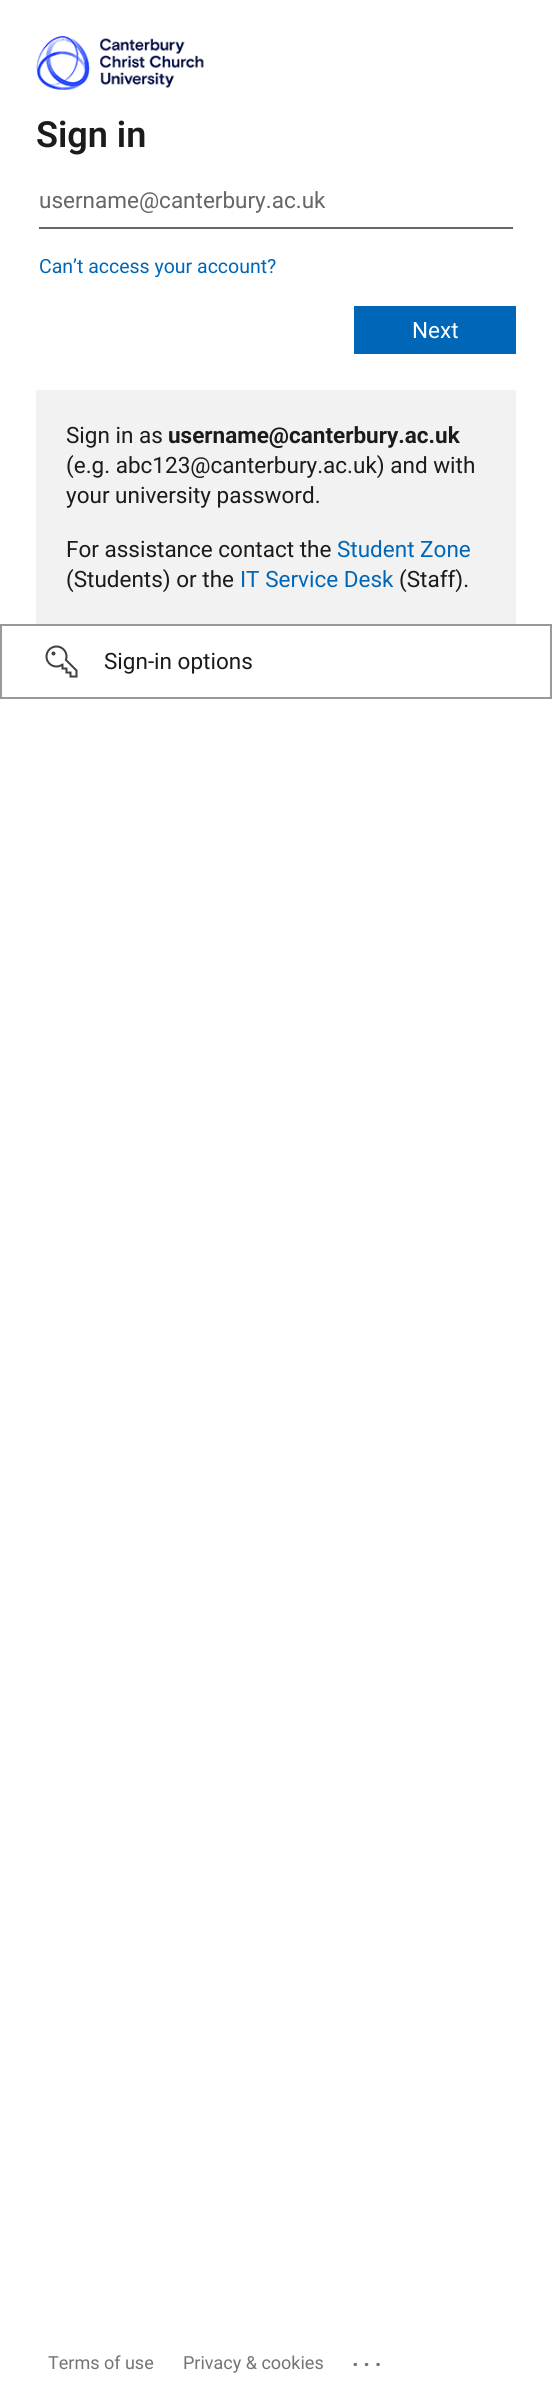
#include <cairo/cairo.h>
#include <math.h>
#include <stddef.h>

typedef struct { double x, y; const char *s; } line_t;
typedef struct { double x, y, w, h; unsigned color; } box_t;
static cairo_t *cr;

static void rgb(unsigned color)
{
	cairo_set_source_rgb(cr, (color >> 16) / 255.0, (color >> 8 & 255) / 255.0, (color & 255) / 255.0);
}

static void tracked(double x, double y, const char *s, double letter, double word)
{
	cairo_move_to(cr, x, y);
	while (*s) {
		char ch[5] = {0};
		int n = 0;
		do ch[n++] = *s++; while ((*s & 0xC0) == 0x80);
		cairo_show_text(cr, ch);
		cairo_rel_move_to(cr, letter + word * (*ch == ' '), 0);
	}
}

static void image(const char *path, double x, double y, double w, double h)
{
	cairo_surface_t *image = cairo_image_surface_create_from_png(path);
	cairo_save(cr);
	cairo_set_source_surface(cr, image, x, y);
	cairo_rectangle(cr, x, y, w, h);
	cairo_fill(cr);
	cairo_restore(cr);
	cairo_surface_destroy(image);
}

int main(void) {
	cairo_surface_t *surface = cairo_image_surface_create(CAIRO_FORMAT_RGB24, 552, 2383);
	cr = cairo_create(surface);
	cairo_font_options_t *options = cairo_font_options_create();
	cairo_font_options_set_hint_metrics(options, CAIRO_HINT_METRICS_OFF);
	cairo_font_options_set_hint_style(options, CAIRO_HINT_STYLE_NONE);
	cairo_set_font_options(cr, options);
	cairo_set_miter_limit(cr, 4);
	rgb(0xffffff);
	cairo_paint(cr);
	image("img/1.png", 36, 36, 168, 54);
	{
		static const box_t items[] = {
			{39, 227, 474, 2, 0x666666},
			{354, 306, 162, 48, 0x0067b8},
			{36, 390, 480, 234, 0xf2f2f2},
		};
		for (size_t i = 0; i < sizeof items / sizeof *items; i++) {
			rgb(items[i].color);
			cairo_rectangle(cr, items[i].x, items[i].y, items[i].w, items[i].h);
			cairo_fill(cr);
		}
	}
	cairo_rectangle(cr, 1, 625, 550, 73);
	rgb(0x999999);
	cairo_stroke(cr);
	image("img/2.png", 45, 645, 33, 33);
	cairo_select_font_face(cr, "Roboto SemiBold", CAIRO_FONT_SLANT_NORMAL, CAIRO_FONT_WEIGHT_NORMAL);
	cairo_set_font_size(cr, 36);
	rgb(0x1b1b1b);
	cairo_move_to(cr, 36, 147);
	cairo_show_text(cr, "Sign in");
	cairo_select_font_face(cr, "Roboto", CAIRO_FONT_SLANT_NORMAL, CAIRO_FONT_WEIGHT_NORMAL);
	cairo_set_font_size(cr, 22.5);
	rgb(0x666666);
	cairo_move_to(cr, 39, 208);
	cairo_show_text(cr, "username@canterbury.ac.uk");
	cairo_set_font_size(cr, 19.5);
	rgb(0x0067b8);
	cairo_move_to(cr, 39, 273);
	cairo_show_text(cr, "Can’t access your account?");
	cairo_set_font_size(cr, 22.5);
	rgb(0xffffff);
	cairo_move_to(cr, 412, 338);
	cairo_show_text(cr, "Next");
	rgb(0x1b1b1b);
	cairo_move_to(cr, 66, 443);
	cairo_show_text(cr, "Sign in as");
	cairo_select_font_face(cr, "Roboto", CAIRO_FONT_SLANT_NORMAL, CAIRO_FONT_WEIGHT_BOLD);
	cairo_move_to(cr, 168, 443);
	cairo_show_text(cr, "username@canterbury.ac.uk");
	cairo_select_font_face(cr, "Roboto", CAIRO_FONT_SLANT_NORMAL, CAIRO_FONT_WEIGHT_NORMAL);
	{
		static const line_t items[] = {
			{66, 473, "(e.g. abc123@canterbury.ac.uk) and with"},
			{66, 503, "your university password."},
			{66, 557, "For assistance contact the"},
		};
		for (size_t i = 0; i < sizeof items / sizeof *items; i++) {
			cairo_move_to(cr, items[i].x, items[i].y);
			cairo_show_text(cr, items[i].s);
		}
	}
	rgb(0x0067b8);
	cairo_move_to(cr, 337, 557);
	cairo_show_text(cr, "Student Zone");
	rgb(0x1b1b1b);
	cairo_move_to(cr, 66, 587);
	cairo_show_text(cr, "(Students) or the");
	rgb(0x0067b8);
	cairo_move_to(cr, 240, 587);
	cairo_show_text(cr, "IT Service Desk");
	rgb(0x1b1b1b);
	cairo_move_to(cr, 399, 587);
	cairo_show_text(cr, "(Staff).");
	cairo_move_to(cr, 104, 669);
	cairo_show_text(cr, "Sign-in options");
	cairo_set_font_size(cr, 18);
	rgb(0x747474);
	cairo_move_to(cr, 48, 2369);
	cairo_show_text(cr, "Terms of use");
	cairo_move_to(cr, 183, 2369);
	cairo_show_text(cr, "Privacy & cookies");
	cairo_select_font_face(cr, "Roboto SemiBold", CAIRO_FONT_SLANT_NORMAL, CAIRO_FONT_WEIGHT_NORMAL);
	cairo_set_font_size(cr, 24);
	tracked(352, 2366, "...", 4.5, 0);
	cairo_surface_write_to_png(surface, "page.png");
	cairo_font_options_destroy(options);
	cairo_destroy(cr);
	cairo_surface_destroy(surface);
	return 0;
}
